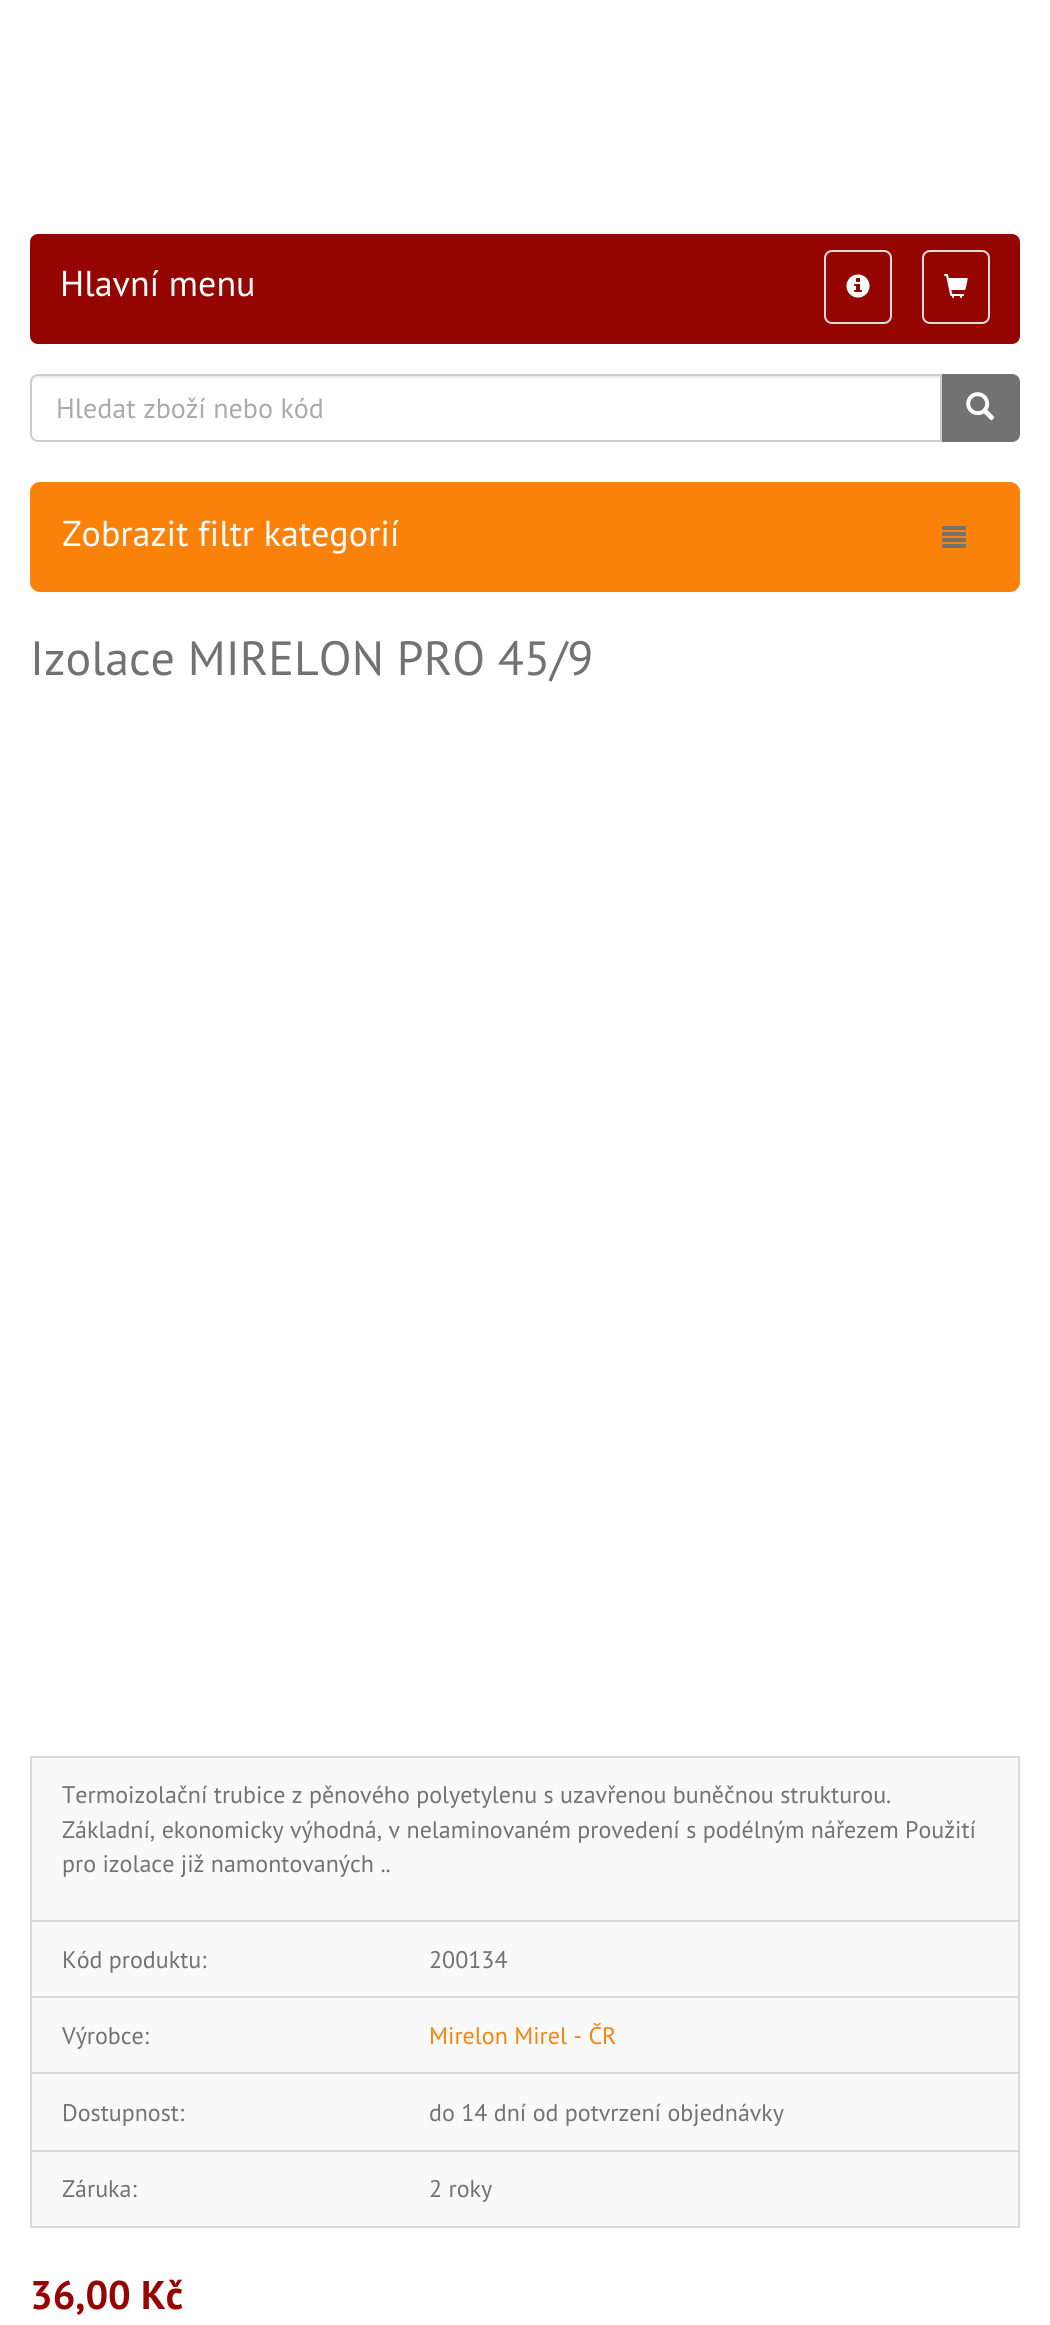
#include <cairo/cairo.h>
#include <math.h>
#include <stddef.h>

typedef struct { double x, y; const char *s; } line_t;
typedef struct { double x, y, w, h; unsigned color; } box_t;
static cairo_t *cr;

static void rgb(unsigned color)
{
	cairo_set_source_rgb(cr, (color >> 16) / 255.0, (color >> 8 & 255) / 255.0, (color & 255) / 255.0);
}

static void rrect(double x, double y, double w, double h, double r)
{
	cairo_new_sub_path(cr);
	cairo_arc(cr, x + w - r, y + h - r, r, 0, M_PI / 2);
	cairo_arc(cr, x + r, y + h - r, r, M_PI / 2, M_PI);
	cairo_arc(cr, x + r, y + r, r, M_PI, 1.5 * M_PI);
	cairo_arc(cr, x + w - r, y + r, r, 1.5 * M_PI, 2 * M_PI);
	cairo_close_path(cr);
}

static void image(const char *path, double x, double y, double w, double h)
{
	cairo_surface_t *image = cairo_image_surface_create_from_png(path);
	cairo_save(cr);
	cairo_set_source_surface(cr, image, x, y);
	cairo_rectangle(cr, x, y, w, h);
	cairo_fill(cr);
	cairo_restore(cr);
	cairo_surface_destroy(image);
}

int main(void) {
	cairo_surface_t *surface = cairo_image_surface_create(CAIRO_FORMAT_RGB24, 1050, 2325);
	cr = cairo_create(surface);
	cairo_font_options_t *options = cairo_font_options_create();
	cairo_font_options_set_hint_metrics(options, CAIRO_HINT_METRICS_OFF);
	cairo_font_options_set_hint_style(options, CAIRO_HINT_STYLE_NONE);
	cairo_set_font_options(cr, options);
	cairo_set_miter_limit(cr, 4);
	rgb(0xffffff);
	cairo_paint(cr);
	rgb(0x950602);
	rrect(30, 234, 990, 110, 8);
	cairo_fill(cr);
	rrect(825, 251, 66, 72, 7);
	rgb(0xdddddd);
	cairo_stroke(cr);
	image("img/1.png", 846, 274, 24, 24);
	rrect(923, 251, 66, 72, 7);
	cairo_stroke(cr);
	image("img/2.png", 944, 274, 24, 24);
	rgb(0x727272);
	cairo_new_path(cr);
	cairo_move_to(cr, 941, 375);
	cairo_line_to(cr, 1012, 375);
	cairo_curve_to(cr, 1016, 375, 1019, 378, 1019, 382);
	cairo_line_to(cr, 1019, 434);
	cairo_curve_to(cr, 1019, 438, 1016, 441, 1012, 441);
	cairo_line_to(cr, 941, 441);
	cairo_close_path(cr);
	cairo_fill_preserve(cr);
	cairo_stroke(cr);
	rgb(0xffffff);
	cairo_new_path(cr);
	cairo_move_to(cr, 38, 374);
	cairo_line_to(cr, 942, 374);
	cairo_line_to(cr, 942, 442);
	cairo_line_to(cr, 38, 442);
	cairo_curve_to(cr, 33.5, 442, 30, 438.5, 30, 434);
	cairo_line_to(cr, 30, 382);
	cairo_curve_to(cr, 30, 377.5, 33.5, 374, 38, 374);
	cairo_close_path(cr);
	cairo_fill(cr);
	rgb(0xececec);
	cairo_new_path(cr);
	cairo_move_to(cr, 38, 378);
	cairo_line_to(cr, 940, 378);
	cairo_line_to(cr, 940, 376);
	cairo_line_to(cr, 38, 376);
	cairo_curve_to(cr, 33, 376, 32, 380, 32, 384);
	cairo_curve_to(cr, 32, 381, 35, 378, 38, 378);
	cairo_close_path(cr);
	cairo_fill(cr);
	cairo_new_path(cr);
	cairo_move_to(cr, 38, 375);
	cairo_line_to(cr, 941, 375);
	cairo_line_to(cr, 941, 441);
	cairo_line_to(cr, 38, 441);
	cairo_curve_to(cr, 34, 441, 31, 438, 31, 434);
	cairo_line_to(cr, 31, 382);
	cairo_curve_to(cr, 31, 378, 34, 375, 38, 375);
	cairo_close_path(cr);
	rgb(0xcccccc);
	cairo_stroke(cr);
	image("img/3.png", 966, 392, 29, 29);
	rgb(0xfa820a);
	rrect(30, 482, 990, 110, 10);
	cairo_fill(cr);
	image("img/4.png", 942, 526, 24, 22);
	{
		static const box_t items[] = {
			{32, 1758, 986, 468, 0xf9f9f9},
			{30, 1756, 990, 2, 0xd9d9d9},
			{1018, 1756, 2, 472, 0xd9d9d9},
			{30, 2226, 990, 2, 0xd9d9d9},
			{30, 1756, 2, 472, 0xd9d9d9},
			{30, 1920, 990, 2, 0xd9d9d9},
			{30, 1996, 990, 2, 0xd9d9d9},
			{30, 2072, 990, 2, 0xd9d9d9},
			{30, 2150, 990, 2, 0xd9d9d9},
		};
		for (size_t i = 0; i < sizeof items / sizeof *items; i++) {
			rgb(items[i].color);
			cairo_rectangle(cr, items[i].x, items[i].y, items[i].w, items[i].h);
			cairo_fill(cr);
		}
	}
	cairo_select_font_face(cr, "PT Sans", CAIRO_FONT_SLANT_NORMAL, CAIRO_FONT_WEIGHT_NORMAL);
	cairo_set_font_size(cr, 36);
	rgb(0xffffff);
	cairo_move_to(cr, 60, 296);
	cairo_show_text(cr, "Hlavní menu");
	cairo_set_font_size(cr, 28);
	rgb(0xaaaaaa);
	cairo_move_to(cr, 56, 418);
	cairo_show_text(cr, "Hledat zboží nebo kód");
	cairo_set_font_size(cr, 36);
	rgb(0xffffff);
	cairo_move_to(cr, 62, 546);
	cairo_show_text(cr, "Zobrazit filtr kategorií");
	cairo_set_font_size(cr, 48);
	rgb(0x727272);
	cairo_move_to(cr, 30, 675);
	cairo_show_text(cr, "Izolace MIRELON PRO 45/9");
	cairo_set_font_size(cr, 24);
	{
		static const line_t items[] = {
			{62, 1803, "Termoizolační trubice z pěnového polyetylenu s uzavřenou buněčnou strukturou."},
			{62, 1838, "Základní, ekonomicky výhodná, v nelaminovaném provedení s podélným nářezem Použití"},
			{62, 1872, "pro izolace již namontovaných .."},
			{62, 1968, "Kód produktu:"},
			{429, 1968, "200134"},
			{62, 2044, "Výrobce:"},
		};
		for (size_t i = 0; i < sizeof items / sizeof *items; i++) {
			cairo_move_to(cr, items[i].x, items[i].y);
			cairo_show_text(cr, items[i].s);
		}
	}
	rgb(0xfa820a);
	cairo_move_to(cr, 429, 2044);
	cairo_show_text(cr, "Mirelon Mirel - ČR");
	rgb(0x727272);
	{
		static const line_t items[] = {
			{62, 2121, "Dostupnost:"},
			{429, 2121, "do 14 dní od potvrzení objednávky"},
			{62, 2197, "Záruka:"},
			{429, 2197, "2 roky"},
		};
		for (size_t i = 0; i < sizeof items / sizeof *items; i++) {
			cairo_move_to(cr, items[i].x, items[i].y);
			cairo_show_text(cr, items[i].s);
		}
	}
	cairo_select_font_face(cr, "PT Sans", CAIRO_FONT_SLANT_NORMAL, CAIRO_FONT_WEIGHT_BOLD);
	cairo_set_font_size(cr, 40);
	rgb(0x950602);
	cairo_move_to(cr, 30, 2309);
	cairo_show_text(cr, "36,00 Kč");
	cairo_surface_write_to_png(surface, "page.png");
	cairo_font_options_destroy(options);
	cairo_destroy(cr);
	cairo_surface_destroy(surface);
	return 0;
}
